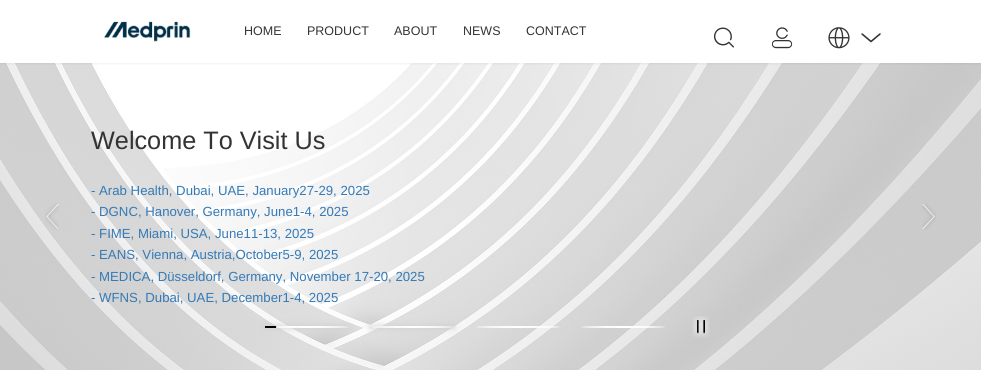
#include <cairo/cairo.h>
#include <math.h>
#include <stddef.h>

typedef struct { double x, y; const char *s; } line_t;
static cairo_t *cr;

static void rgb(unsigned color)
{
	cairo_set_source_rgb(cr, (color >> 16) / 255.0, (color >> 8 & 255) / 255.0, (color & 255) / 255.0);
}

static void rrect(double x, double y, double w, double h, double r)
{
	cairo_new_sub_path(cr);
	cairo_arc(cr, x + w - r, y + h - r, r, 0, M_PI / 2);
	cairo_arc(cr, x + r, y + h - r, r, M_PI / 2, M_PI);
	cairo_arc(cr, x + r, y + r, r, M_PI, 1.5 * M_PI);
	cairo_arc(cr, x + w - r, y + r, r, 1.5 * M_PI, 2 * M_PI);
	cairo_close_path(cr);
}

static void soft_shadow(double x, double y, double w, double h, double r, double blur, double alpha)
{
	cairo_push_group_with_content(cr, CAIRO_CONTENT_ALPHA);
	cairo_set_operator(cr, CAIRO_OPERATOR_SOURCE);
	for (int i = 15; i >= -15 && fmin(w, h) + blur * i / 3 > 0; i -= 2) {
		double e = blur * i / 6;
		cairo_set_source_rgba(cr, 0, 0, 0, alpha * erfc((i - 1) / 8.5) / 2);
		rrect(x - e, y - e, w + 2 * e, h + 2 * e, fmax(0, fmin(r + e + blur * .6, fmin(w, h) / 2 + e)));
		cairo_fill(cr);
	}
	cairo_pattern_t *soft = cairo_pop_group(cr);
	cairo_mask(cr, soft);
	cairo_pattern_destroy(soft);
}

static void image(const char *path, double x, double y, double w, double h)
{
	cairo_surface_t *image = cairo_image_surface_create_from_png(path);
	cairo_save(cr);
	cairo_set_source_surface(cr, image, x, y);
	cairo_rectangle(cr, x, y, w, h);
	cairo_fill(cr);
	cairo_restore(cr);
	cairo_surface_destroy(image);
}

int main(void) {
	cairo_surface_t *surface = cairo_image_surface_create(CAIRO_FORMAT_RGB24, 981, 389);
	cr = cairo_create(surface);
	cairo_font_options_t *options = cairo_font_options_create();
	cairo_font_options_set_hint_metrics(options, CAIRO_HINT_METRICS_OFF);
	cairo_font_options_set_hint_style(options, CAIRO_HINT_STYLE_NONE);
	cairo_set_font_options(cr, options);
	cairo_set_miter_limit(cr, 4);
	rgb(0xffffff);
	cairo_paint(cr);
	image("img/7.png", 0, 63, 981, 307);
	cairo_save(cr);
	cairo_rectangle(cr, 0, 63, 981, 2);
	cairo_clip(cr);
	rgb(0x000000);
	soft_shadow(0, 0, 981, 63, 0, 2, 0.1);
	cairo_restore(cr);
	image("img/1.png", 104, 21, 87, 21);
	image("img/2.png", 714, 27, 20, 21);
	image("img/3.png", 771, 27, 22, 22);
	image("img/4.png", 828, 27, 22, 22);
	image("img/5.png", 861, 33, 20, 10);
	image("img/6.png", 45, 203, 14, 27);
	image("img/8.png", 922, 203, 14, 27);
	rgb(0xcfcfcf);
	soft_shadow(265, 326, 84, 2, 1, 3, 1);
	rgb(0xffffff);
	cairo_new_path(cr);
	cairo_move_to(cr, 307, 326);
	cairo_curve_to(cr, 330, 326, 349, 326.5, 349, 327);
	cairo_curve_to(cr, 349, 327.5, 330, 328, 307, 328);
	cairo_curve_to(cr, 284, 328, 265, 327.5, 265, 327);
	cairo_curve_to(cr, 265, 326.5, 284, 326, 307, 326);
	cairo_close_path(cr);
	cairo_fill(cr);
	image("img/9.png", 265, 326, 12, 2);
	rgb(0xcfcfcf);
	soft_shadow(370, 326, 84, 2, 1, 3, 1);
	rgb(0xffffff);
	cairo_new_path(cr);
	cairo_move_to(cr, 412, 326);
	cairo_curve_to(cr, 435, 326, 454, 326.5, 454, 327);
	cairo_curve_to(cr, 454, 327.5, 435, 328, 412, 328);
	cairo_curve_to(cr, 389, 328, 370, 327.5, 370, 327);
	cairo_curve_to(cr, 370, 326.5, 389, 326, 412, 326);
	cairo_close_path(cr);
	cairo_fill(cr);
	cairo_new_path(cr);
	cairo_move_to(cr, 518, 326);
	cairo_curve_to(cr, 541, 326, 560, 326.5, 560, 327);
	cairo_curve_to(cr, 560, 327.5, 541, 328, 518, 328);
	cairo_curve_to(cr, 495, 328, 476, 327.5, 476, 327);
	cairo_curve_to(cr, 476, 326.5, 495, 326, 518, 326);
	cairo_close_path(cr);
	cairo_fill(cr);
	cairo_new_path(cr);
	cairo_move_to(cr, 623, 326);
	cairo_curve_to(cr, 646, 326, 665, 326.5, 665, 327);
	cairo_curve_to(cr, 665, 327.5, 646, 328, 623, 328);
	cairo_curve_to(cr, 600, 328, 581, 327.5, 581, 327);
	cairo_curve_to(cr, 581, 326.5, 600, 326, 623, 326);
	cairo_close_path(cr);
	cairo_fill(cr);
	image("img/10.png", 692, 316, 18, 22);
	cairo_select_font_face(cr, "Liberation Sans", CAIRO_FONT_SLANT_NORMAL, CAIRO_FONT_WEIGHT_NORMAL);
	cairo_set_font_size(cr, 12.5);
	rgb(0x333333);
	{
		static const line_t items[] = {
			{244, 35, "HOME"},
			{307, 35, "PRODUCT"},
			{394, 35, "ABOUT"},
			{463, 35, "NEWS"},
			{526, 35, "CONTACT"},
		};
		for (size_t i = 0; i < sizeof items / sizeof *items; i++) {
			cairo_move_to(cr, items[i].x, items[i].y);
			cairo_show_text(cr, items[i].s);
		}
	}
	cairo_set_font_size(cr, 25.25);
	cairo_move_to(cr, 91, 149);
	cairo_show_text(cr, "Welcome To Visit Us");
	cairo_set_font_size(cr, 13.2);
	rgb(0x337ab7);
	{
		static const line_t items[] = {
			{91, 195, "- Arab Health, Dubai, UAE, January27-29, 2025"},
			{91, 216, "- DGNC, Hanover, Germany, June1-4, 2025"},
			{91, 238, "- FIME, Miami, USA, June11-13, 2025"},
			{91, 259, "- EANS, Vienna, Austria,October5-9, 2025"},
			{91, 281, "- MEDICA, Düsseldorf, Germany, November 17-20, 2025"},
			{91, 302, "- WFNS, Dubai, UAE, December1-4, 2025"},
		};
		for (size_t i = 0; i < sizeof items / sizeof *items; i++) {
			cairo_move_to(cr, items[i].x, items[i].y);
			cairo_show_text(cr, items[i].s);
		}
	}
	cairo_surface_write_to_png(surface, "page.png");
	cairo_font_options_destroy(options);
	cairo_destroy(cr);
	cairo_surface_destroy(surface);
	return 0;
}
